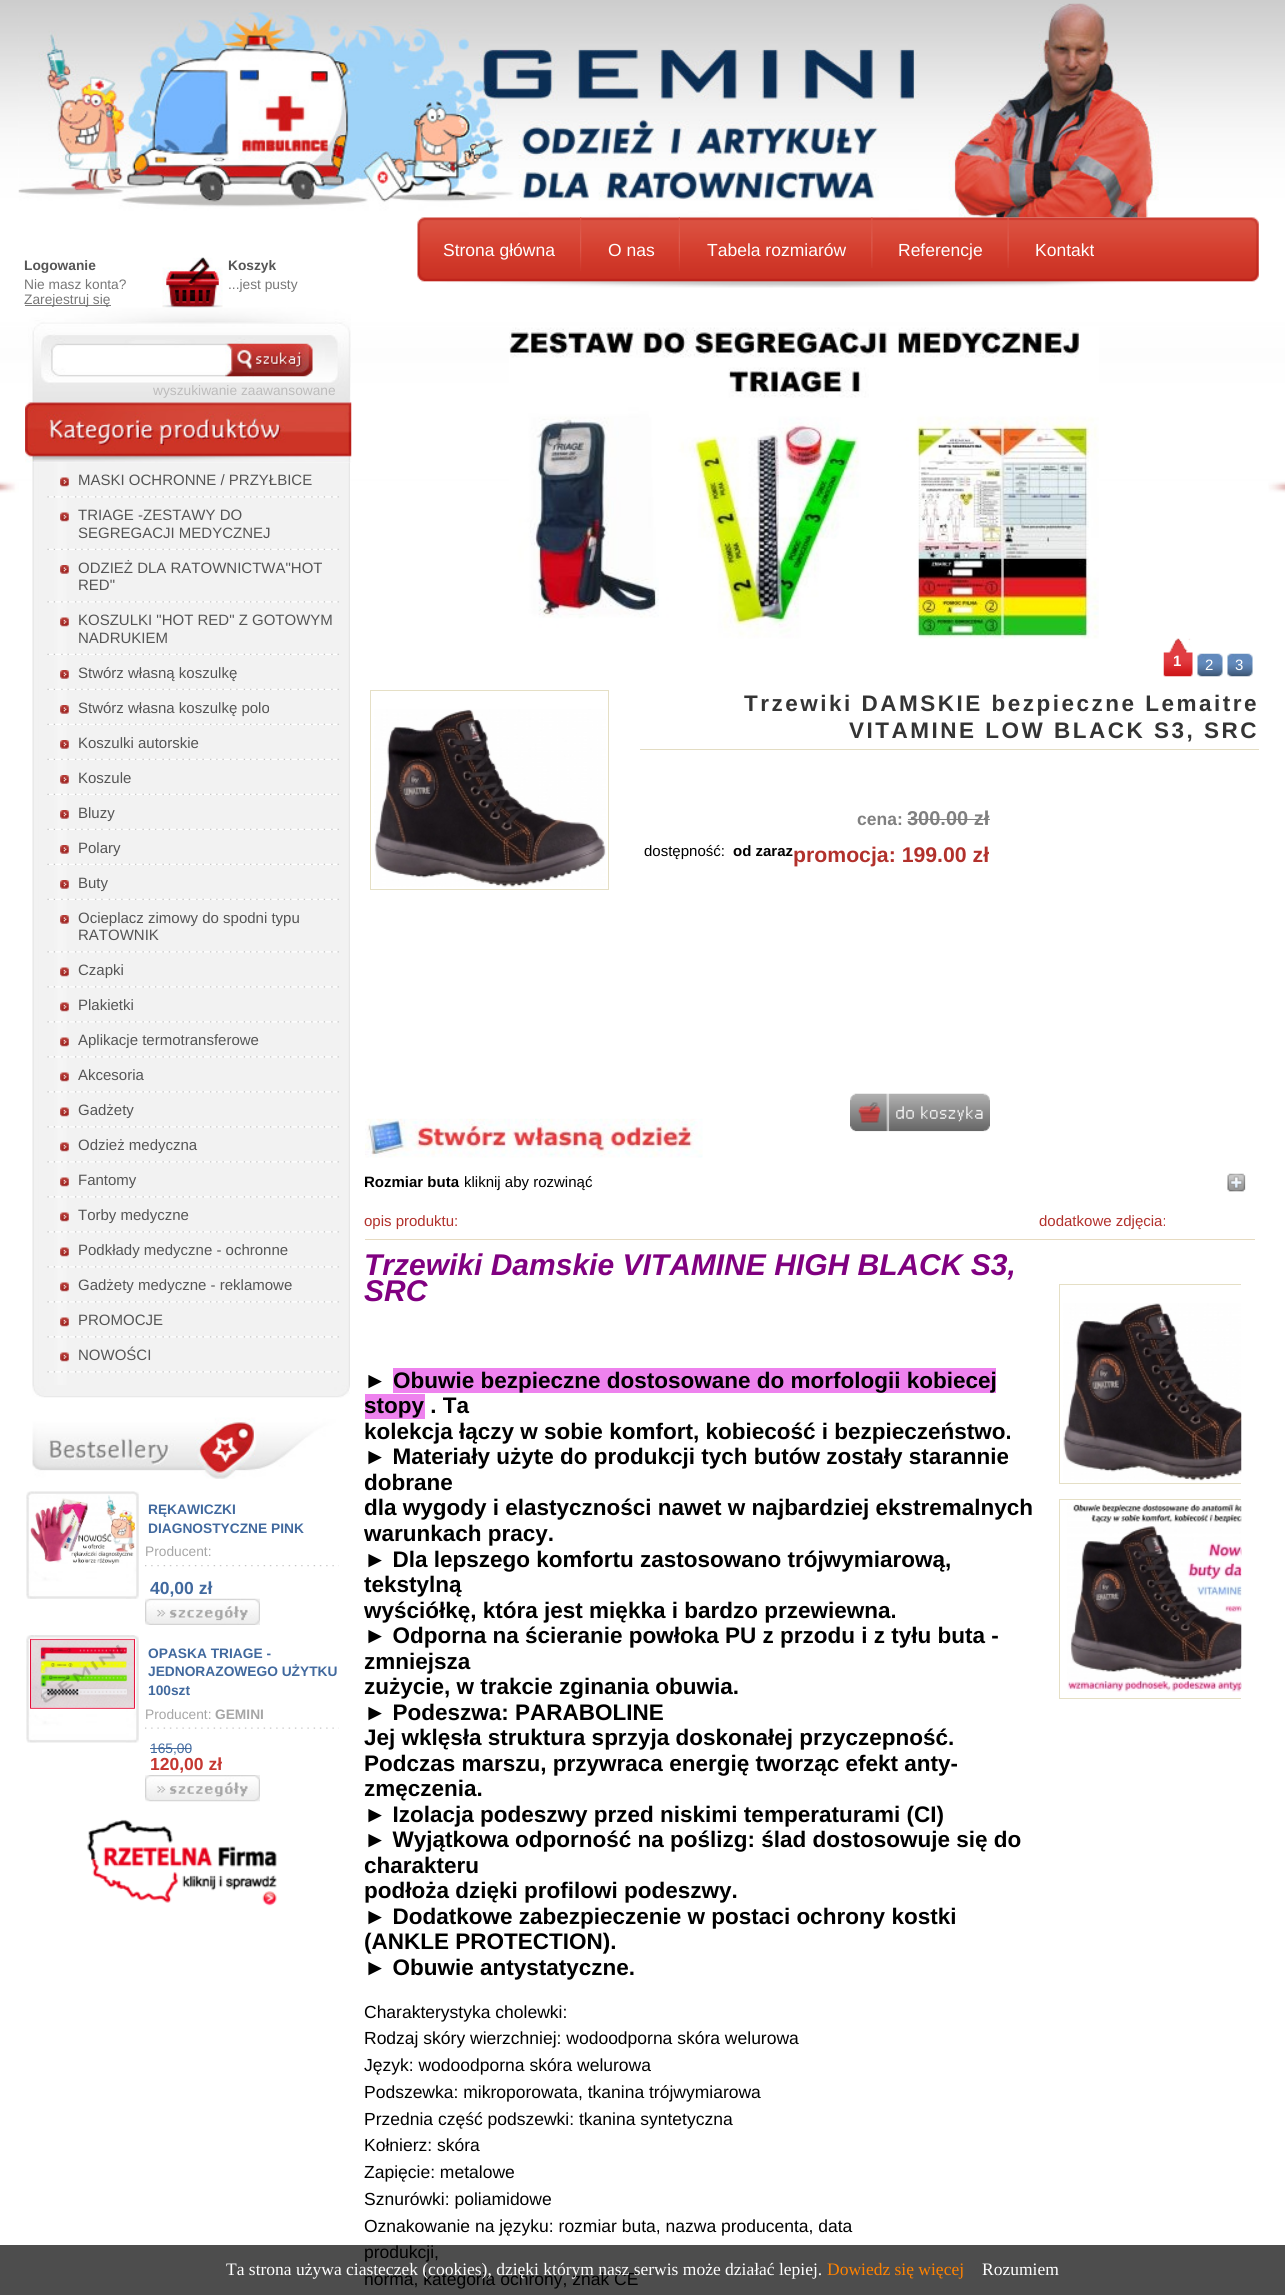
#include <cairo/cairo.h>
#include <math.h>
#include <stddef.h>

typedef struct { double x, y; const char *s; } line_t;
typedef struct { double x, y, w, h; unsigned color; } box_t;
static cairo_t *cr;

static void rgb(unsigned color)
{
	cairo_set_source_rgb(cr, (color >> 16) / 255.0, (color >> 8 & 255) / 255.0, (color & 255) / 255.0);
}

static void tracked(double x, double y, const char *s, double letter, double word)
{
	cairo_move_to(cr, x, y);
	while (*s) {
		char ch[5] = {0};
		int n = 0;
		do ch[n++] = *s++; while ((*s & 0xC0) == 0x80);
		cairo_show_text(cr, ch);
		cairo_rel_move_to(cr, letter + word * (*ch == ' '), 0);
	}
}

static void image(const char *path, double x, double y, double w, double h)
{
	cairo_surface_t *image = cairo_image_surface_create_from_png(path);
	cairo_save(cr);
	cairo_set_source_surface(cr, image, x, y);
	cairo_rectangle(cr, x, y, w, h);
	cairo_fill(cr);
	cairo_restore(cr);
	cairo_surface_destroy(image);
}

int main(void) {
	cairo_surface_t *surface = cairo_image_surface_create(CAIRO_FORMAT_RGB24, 1285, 2295);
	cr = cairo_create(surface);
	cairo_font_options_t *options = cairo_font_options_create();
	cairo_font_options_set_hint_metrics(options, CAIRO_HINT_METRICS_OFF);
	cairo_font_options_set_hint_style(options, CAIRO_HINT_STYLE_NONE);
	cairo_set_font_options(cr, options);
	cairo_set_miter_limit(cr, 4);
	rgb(0xffffff);
	cairo_paint(cr);
	rgb(0x4d4d4d);
	cairo_rectangle(cr, 0, 2245, 1285, 50);
	cairo_fill(cr);
	image("img/1.png", 0, 0, 1285, 481);
	image("img/2.png", 18, 3, 1141, 215);
	image("img/3.png", 417, 217, 842, 71);
	image("img/4.png", 580, 217, 2, 54);
	image("img/5.png", 678, 217, 2, 54);
	image("img/6.png", 871, 217, 2, 51);
	image("img/7.png", 1007, 217, 2, 51);
	image("img/8.png", 0, 481, 19, 12);
	rgb(0x777777);
	cairo_rectangle(cr, 25, 305, 86, 1);
	cairo_fill(cr);
	image("img/9.png", 162, 257, 61, 51);
	image("img/10.png", 28, 307, 323, 96);
	image("img/11.png", 225, 343, 88, 34);
	image("img/12.png", 25, 402, 327, 61);
	image("img/13.png", 32, 462, 318, 923);
	image("img/14.png", 47, 496, 292, 2);
	image("img/15.png", 60, 477, 9, 10);
	image("img/16.png", 47, 548, 292, 2);
	image("img/17.png", 60, 512, 9, 10);
	image("img/14.png", 47, 601, 292, 2);
	image("img/18.png", 60, 565, 9, 9);
	image("img/16.png", 47, 653, 292, 2);
	image("img/15.png", 60, 617, 9, 10);
	image("img/16.png", 47, 688, 292, 2);
	image("img/18.png", 60, 670, 9, 9);
	image("img/16.png", 47, 723, 292, 2);
	image("img/18.png", 60, 705, 9, 9);
	image("img/16.png", 47, 758, 292, 2);
	image("img/18.png", 60, 740, 9, 9);
	image("img/16.png", 47, 793, 292, 2);
	image("img/19.png", 60, 775, 9, 9);
	image("img/16.png", 47, 828, 292, 2);
	image("img/18.png", 60, 810, 9, 9);
	image("img/16.png", 47, 863, 292, 2);
	image("img/18.png", 60, 845, 9, 9);
	image("img/16.png", 47, 898, 292, 2);
	image("img/18.png", 60, 880, 9, 9);
	image("img/14.png", 47, 951, 292, 2);
	image("img/18.png", 60, 915, 9, 9);
	image("img/14.png", 47, 986, 292, 2);
	image("img/15.png", 60, 967, 9, 10);
	image("img/14.png", 47, 1021, 292, 2);
	image("img/15.png", 60, 1002, 9, 10);
	image("img/14.png", 47, 1056, 292, 2);
	image("img/15.png", 60, 1037, 9, 10);
	image("img/14.png", 47, 1091, 292, 2);
	image("img/15.png", 60, 1072, 9, 10);
	image("img/14.png", 47, 1126, 292, 2);
	image("img/15.png", 60, 1107, 9, 10);
	image("img/14.png", 47, 1161, 292, 2);
	image("img/15.png", 60, 1142, 9, 10);
	image("img/14.png", 47, 1196, 292, 2);
	image("img/15.png", 60, 1177, 9, 10);
	image("img/14.png", 47, 1231, 292, 2);
	image("img/15.png", 60, 1212, 9, 10);
	image("img/14.png", 47, 1266, 292, 2);
	image("img/15.png", 60, 1247, 9, 10);
	image("img/14.png", 47, 1301, 292, 2);
	image("img/15.png", 60, 1282, 9, 10);
	image("img/14.png", 47, 1336, 292, 2);
	image("img/15.png", 60, 1317, 9, 10);
	image("img/14.png", 47, 1371, 292, 2);
	image("img/15.png", 60, 1352, 9, 10);
	image("img/20.png", 32, 1385, 318, 13);
	image("img/21.png", 32, 1397, 308, 82);
	image("img/22.png", 26, 1491, 113, 108);
	image("img/23.png", 30, 1495, 105, 69);
	image("img/24.png", 145, 1565, 194, 2);
	image("img/25.png", 145, 1598, 115, 27);
	image("img/26.png", 26, 1635, 113, 108);
	image("img/27.png", 30, 1638, 105, 71);
	image("img/28.png", 145, 1727, 194, 2);
	rgb(0x41699e);
	cairo_rectangle(cr, 150, 1748, 41, 1);
	cairo_fill(cr);
	image("img/29.png", 145, 1775, 115, 27);
	image("img/30.png", 87, 1819, 190, 87);
	image("img/31.png", 509, 327, 590, 312);
	image("img/32.png", 1163, 638, 30, 39);
	image("img/33.png", 1197, 653, 26, 24);
	image("img/33.png", 1227, 653, 26, 24);
	cairo_rectangle(cr, 370.5, 690.5, 238, 199);
	rgb(0xe5dfc5);
	cairo_set_line_width(cr, 1);
	cairo_stroke(cr);
	image("img/34.png", 374, 709, 232, 178);
	rgb(0xe3dcc2);
	cairo_rectangle(cr, 640, 749, 619, 1);
	cairo_fill(cr);
	rgb(0x808080);
	cairo_rectangle(cr, 908, 819, 82, 1);
	cairo_fill(cr);
	image("img/35.png", 850, 1093, 140, 39);
	image("img/36.png", 365, 1118, 338, 40);
	image("img/37.png", 1227, 1173, 19, 19);
	{
		static const box_t items[] = {
			{365, 1239, 890, 1, 0xe6dac0},
			{393, 1368, 603, 25, 0xee82ee},
			{365, 1394, 60, 25, 0xee82ee},
		};
		for (size_t i = 0; i < sizeof items / sizeof *items; i++) {
			rgb(items[i].color);
			cairo_rectangle(cr, items[i].x, items[i].y, items[i].w, items[i].h);
			cairo_fill(cr);
		}
	}
	cairo_save(cr);
	cairo_rectangle(cr, 1059, 1284, 182, 202);
	cairo_clip(cr);
	cairo_rectangle(cr, 1059.5, 1284.5, 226, 199);
	rgb(0xe5dfc5);
	cairo_stroke(cr);
	cairo_restore(cr);
	image("img/38.png", 1063, 1303, 179, 178);
	cairo_save(cr);
	cairo_rectangle(cr, 1059, 1499, 182, 202);
	cairo_clip(cr);
	cairo_rectangle(cr, 1059.5, 1499.5, 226, 199);
	rgb(0xe5dfc5);
	cairo_stroke(cr);
	cairo_restore(cr);
	image("img/39.png", 1067, 1503, 175, 189);
	image("img/40.png", 1268, 481, 17, 12);
	cairo_select_font_face(cr, "Liberation Sans", CAIRO_FONT_SLANT_NORMAL, CAIRO_FONT_WEIGHT_NORMAL);
	cairo_set_font_size(cr, 17.5);
	rgb(0xffffff);
	{
		static const line_t items[] = {
			{443, 256, "Strona główna"},
			{608, 256, "O nas"},
			{707, 256, "Tabela rozmiarów"},
			{898, 256, "Referencje"},
			{1035, 256, "Kontakt"},
		};
		for (size_t i = 0; i < sizeof items / sizeof *items; i++) {
			cairo_move_to(cr, items[i].x, items[i].y);
			cairo_show_text(cr, items[i].s);
		}
	}
	cairo_select_font_face(cr, "Liberation Sans", CAIRO_FONT_SLANT_NORMAL, CAIRO_FONT_WEIGHT_BOLD);
	cairo_set_font_size(cr, 13.75);
	rgb(0x555555);
	cairo_move_to(cr, 24, 270);
	cairo_show_text(cr, "Logowanie");
	cairo_select_font_face(cr, "Liberation Sans", CAIRO_FONT_SLANT_NORMAL, CAIRO_FONT_WEIGHT_NORMAL);
	rgb(0x777777);
	cairo_move_to(cr, 24, 289);
	cairo_show_text(cr, "Nie masz konta?");
	cairo_move_to(cr, 24, 304);
	cairo_show_text(cr, "Zarejestruj się");
	cairo_select_font_face(cr, "Liberation Sans", CAIRO_FONT_SLANT_NORMAL, CAIRO_FONT_WEIGHT_BOLD);
	rgb(0x555555);
	cairo_move_to(cr, 228, 270);
	cairo_show_text(cr, "Koszyk");
	cairo_select_font_face(cr, "Liberation Sans", CAIRO_FONT_SLANT_NORMAL, CAIRO_FONT_WEIGHT_NORMAL);
	rgb(0x777777);
	cairo_move_to(cr, 228, 289);
	cairo_show_text(cr, "...jest pusty");
	rgb(0xbdbcbc);
	cairo_move_to(cr, 153, 395);
	cairo_show_text(cr, "wyszukiwanie zaawansowane");
	cairo_set_font_size(cr, 15);
	rgb(0x555555);
	{
		static const line_t items[] = {
			{78, 485, "MASKI OCHRONNE / PRZYŁBICE"},
			{78, 520, "TRIAGE -ZESTAWY DO"},
			{78, 538, "SEGREGACJI MEDYCZNEJ"},
			{78, 573, "ODZIEŻ DLA RATOWNICTWA\"HOT"},
			{78, 590, "RED\""},
			{78, 625, "KOSZULKI \"HOT RED\" Z GOTOWYM"},
			{78, 643, "NADRUKIEM"},
			{78, 678, "Stwórz własną koszulkę"},
			{78, 713, "Stwórz własna koszulkę polo"},
			{78, 748, "Koszulki autorskie"},
			{78, 783, "Koszule"},
			{78, 818, "Bluzy"},
			{78, 853, "Polary"},
			{78, 888, "Buty"},
			{78, 923, "Ocieplacz zimowy do spodni typu"},
			{78, 940, "RATOWNIK"},
			{78, 975, "Czapki"},
			{78, 1010, "Plakietki"},
			{78, 1045, "Aplikacje termotransferowe"},
			{78, 1080, "Akcesoria"},
			{78, 1115, "Gadżety"},
			{78, 1150, "Odzież medyczna"},
			{78, 1185, "Fantomy"},
			{78, 1220, "Torby medyczne"},
			{78, 1255, "Podkłady medyczne - ochronne"},
			{78, 1290, "Gadżety medyczne - reklamowe"},
			{78, 1325, "PROMOCJE"},
			{78, 1360, "NOWOŚCI"},
		};
		for (size_t i = 0; i < sizeof items / sizeof *items; i++) {
			cairo_move_to(cr, items[i].x, items[i].y);
			cairo_show_text(cr, items[i].s);
		}
	}
	cairo_select_font_face(cr, "Liberation Sans", CAIRO_FONT_SLANT_NORMAL, CAIRO_FONT_WEIGHT_BOLD);
	cairo_set_font_size(cr, 13.75);
	rgb(0x41699e);
	cairo_move_to(cr, 148, 1514);
	cairo_show_text(cr, "RĘKAWICZKI");
	cairo_move_to(cr, 148, 1533);
	cairo_show_text(cr, "DIAGNOSTYCZNE PINK");
	cairo_select_font_face(cr, "Liberation Sans", CAIRO_FONT_SLANT_NORMAL, CAIRO_FONT_WEIGHT_NORMAL);
	rgb(0xa6a6a6);
	cairo_move_to(cr, 145, 1556);
	cairo_show_text(cr, "Producent:");
	cairo_select_font_face(cr, "Liberation Sans", CAIRO_FONT_SLANT_NORMAL, CAIRO_FONT_WEIGHT_BOLD);
	cairo_set_font_size(cr, 17.5);
	rgb(0x41699e);
	cairo_move_to(cr, 150, 1594);
	cairo_show_text(cr, "40,00 zł");
	cairo_set_font_size(cr, 13.75);
	{
		static const line_t items[] = {
			{148, 1658, "OPASKA TRIAGE -"},
			{148, 1676, "JEDNORAZOWEGO UŻYTKU"},
			{148, 1695, "100szt"},
		};
		for (size_t i = 0; i < sizeof items / sizeof *items; i++) {
			cairo_move_to(cr, items[i].x, items[i].y);
			cairo_show_text(cr, items[i].s);
		}
	}
	cairo_select_font_face(cr, "Liberation Sans", CAIRO_FONT_SLANT_NORMAL, CAIRO_FONT_WEIGHT_NORMAL);
	rgb(0xa6a6a6);
	cairo_move_to(cr, 145, 1719);
	cairo_show_text(cr, "Producent:");
	cairo_select_font_face(cr, "Liberation Sans", CAIRO_FONT_SLANT_NORMAL, CAIRO_FONT_WEIGHT_BOLD);
	cairo_move_to(cr, 215, 1719);
	cairo_show_text(cr, "GEMINI");
	cairo_select_font_face(cr, "Liberation Sans", CAIRO_FONT_SLANT_NORMAL, CAIRO_FONT_WEIGHT_NORMAL);
	rgb(0x41699e);
	cairo_move_to(cr, 150, 1753);
	cairo_show_text(cr, "165,00");
	cairo_select_font_face(cr, "Liberation Sans", CAIRO_FONT_SLANT_NORMAL, CAIRO_FONT_WEIGHT_BOLD);
	cairo_set_font_size(cr, 17.5);
	rgb(0xc53832);
	cairo_move_to(cr, 150, 1770);
	cairo_show_text(cr, "120,00 zł");
	cairo_set_font_size(cr, 15);
	rgb(0xffffff);
	cairo_move_to(cr, 1173, 666);
	cairo_show_text(cr, "1");
	cairo_select_font_face(cr, "Liberation Sans", CAIRO_FONT_SLANT_NORMAL, CAIRO_FONT_WEIGHT_NORMAL);
	cairo_move_to(cr, 1205, 670);
	cairo_show_text(cr, "2");
	cairo_move_to(cr, 1235, 670);
	cairo_show_text(cr, "3");
	cairo_select_font_face(cr, "Liberation Sans", CAIRO_FONT_SLANT_NORMAL, CAIRO_FONT_WEIGHT_BOLD);
	cairo_set_font_size(cr, 22.5);
	rgb(0x343434);
	tracked(744, 711, "Trzewiki DAMSKIE bezpieczne Lemaitre", 2.5, 0);
	tracked(849, 738, "VITAMINE LOW BLACK S3, SRC", 2.5, 0);
	cairo_set_font_size(cr, 17.5);
	rgb(0x808080);
	cairo_move_to(cr, 857, 825);
	cairo_show_text(cr, "cena:");
	cairo_set_font_size(cr, 20);
	cairo_move_to(cr, 907, 825);
	cairo_show_text(cr, "300.00 zł");
	cairo_select_font_face(cr, "Liberation Sans", CAIRO_FONT_SLANT_NORMAL, CAIRO_FONT_WEIGHT_NORMAL);
	cairo_set_font_size(cr, 15);
	rgb(0x000000);
	cairo_move_to(cr, 644, 856);
	cairo_show_text(cr, "dostępność:");
	cairo_select_font_face(cr, "Liberation Sans", CAIRO_FONT_SLANT_NORMAL, CAIRO_FONT_WEIGHT_BOLD);
	cairo_move_to(cr, 733, 856);
	cairo_show_text(cr, "od zaraz");
	cairo_set_font_size(cr, 21.25);
	rgb(0xb2312c);
	cairo_move_to(cr, 793, 862);
	cairo_show_text(cr, "promocja: 199.00 zł");
	cairo_set_font_size(cr, 15);
	rgb(0x000000);
	cairo_move_to(cr, 364, 1187);
	cairo_show_text(cr, "Rozmiar buta");
	cairo_select_font_face(cr, "Liberation Sans", CAIRO_FONT_SLANT_NORMAL, CAIRO_FONT_WEIGHT_NORMAL);
	cairo_move_to(cr, 464, 1187);
	cairo_show_text(cr, "kliknij aby rozwinąć");
	rgb(0xb2312c);
	cairo_move_to(cr, 364, 1226);
	cairo_show_text(cr, "opis produktu:");
	cairo_select_font_face(cr, "Liberation Sans", CAIRO_FONT_SLANT_ITALIC, CAIRO_FONT_WEIGHT_BOLD);
	cairo_set_font_size(cr, 30);
	rgb(0x800080);
	cairo_move_to(cr, 364, 1275);
	cairo_show_text(cr, "Trzewiki Damskie VITAMINE HIGH BLACK S3,");
	cairo_move_to(cr, 364, 1301);
	cairo_show_text(cr, "SRC");
	cairo_select_font_face(cr, "Liberation Sans", CAIRO_FONT_SLANT_NORMAL, CAIRO_FONT_WEIGHT_BOLD);
	cairo_set_font_size(cr, 22.5);
	rgb(0x000000);
	{
		static const line_t items[] = {
			{364, 1388, "►"},
			{393, 1388, "Obuwie bezpieczne dostosowane do morfologii kobiecej"},
			{364, 1413, "stopy . Ta"},
			{364, 1439, "kolekcja łączy w sobie komfort, kobiecość i bezpieczeństwo."},
			{364, 1464, "► Materiały użyte do produkcji tych butów zostały starannie"},
			{364, 1490, "dobrane"},
			{364, 1515, "dla wygody i elastyczności nawet w najbardziej ekstremalnych"},
			{364, 1541, "warunkach pracy."},
			{364, 1567, "► Dla lepszego komfortu zastosowano trójwymiarową,"},
			{364, 1592, "tekstylną"},
			{364, 1618, "wyściółkę, która jest miękka i bardzo przewiewna."},
			{364, 1643, "► Odporna na ścieranie powłoka PU z przodu i z tyłu buta -"},
			{364, 1669, "zmniejsza"},
			{364, 1694, "zużycie, w trakcie zginania obuwia."},
			{364, 1720, "► Podeszwa: PARABOLINE"},
			{364, 1745, "Jej wklęsła struktura sprzyja doskonałej przyczepność."},
			{364, 1771, "Podczas marszu, przywraca energię tworząc efekt anty-"},
			{364, 1796, "zmęczenia."},
			{364, 1822, "► Izolacja podeszwy przed niskimi temperaturami (CI)"},
			{364, 1847, "► Wyjątkowa odporność na poślizg: ślad dostosowuje się do"},
			{364, 1873, "charakteru"},
			{364, 1898, "podłoża dzięki profilowi podeszwy."},
			{364, 1924, "► Dodatkowe zabezpieczenie w postaci ochrony kostki"},
			{364, 1949, "(ANKLE PROTECTION)."},
			{364, 1975, "► Obuwie antystatyczne."},
		};
		for (size_t i = 0; i < sizeof items / sizeof *items; i++) {
			cairo_move_to(cr, items[i].x, items[i].y);
			cairo_show_text(cr, items[i].s);
		}
	}
	cairo_select_font_face(cr, "Liberation Sans", CAIRO_FONT_SLANT_NORMAL, CAIRO_FONT_WEIGHT_NORMAL);
	cairo_set_font_size(cr, 17.5);
	{
		static const line_t items[] = {
			{364, 2018, "Charakterystyka cholewki:"},
			{364, 2044, "Rodzaj skóry wierzchniej: wodoodporna skóra welurowa"},
			{364, 2071, "Język: wodoodporna skóra welurowa"},
			{364, 2098, "Podszewka: mikroporowata, tkanina trójwymiarowa"},
			{364, 2125, "Przednia część podszewki: tkanina syntetyczna"},
			{364, 2151, "Kołnierz: skóra"},
			{364, 2178, "Zapięcie: metalowe"},
			{364, 2205, "Sznurówki: poliamidowe"},
			{364, 2232, "Oznakowanie na języku: rozmiar buta, nazwa producenta, data"},
			{364, 2258, "produkcji,"},
			{364, 2285, "norma, kategoria ochrony, znak CE"},
		};
		for (size_t i = 0; i < sizeof items / sizeof *items; i++) {
			cairo_move_to(cr, items[i].x, items[i].y);
			cairo_show_text(cr, items[i].s);
		}
	}
	cairo_set_font_size(cr, 15);
	rgb(0xb2312c);
	cairo_move_to(cr, 1039, 1226);
	cairo_show_text(cr, "dodatkowe zdjęcia:");
	cairo_select_font_face(cr, "Liberation Serif", CAIRO_FONT_SLANT_NORMAL, CAIRO_FONT_WEIGHT_NORMAL);
	cairo_set_font_size(cr, 17.5);
	rgb(0xffffff);
	cairo_move_to(cr, 226, 2275);
	cairo_show_text(cr, "Ta strona używa ciasteczek (cookies), dzięki którym nasz serwis może działać lepiej.");
	rgb(0xff8200);
	cairo_move_to(cr, 827, 2275);
	cairo_show_text(cr, "Dowiedz się więcej");
	rgb(0xffffff);
	cairo_move_to(cr, 982, 2275);
	cairo_show_text(cr, "Rozumiem");
	cairo_surface_write_to_png(surface, "page.png");
	cairo_font_options_destroy(options);
	cairo_destroy(cr);
	cairo_surface_destroy(surface);
	return 0;
}
